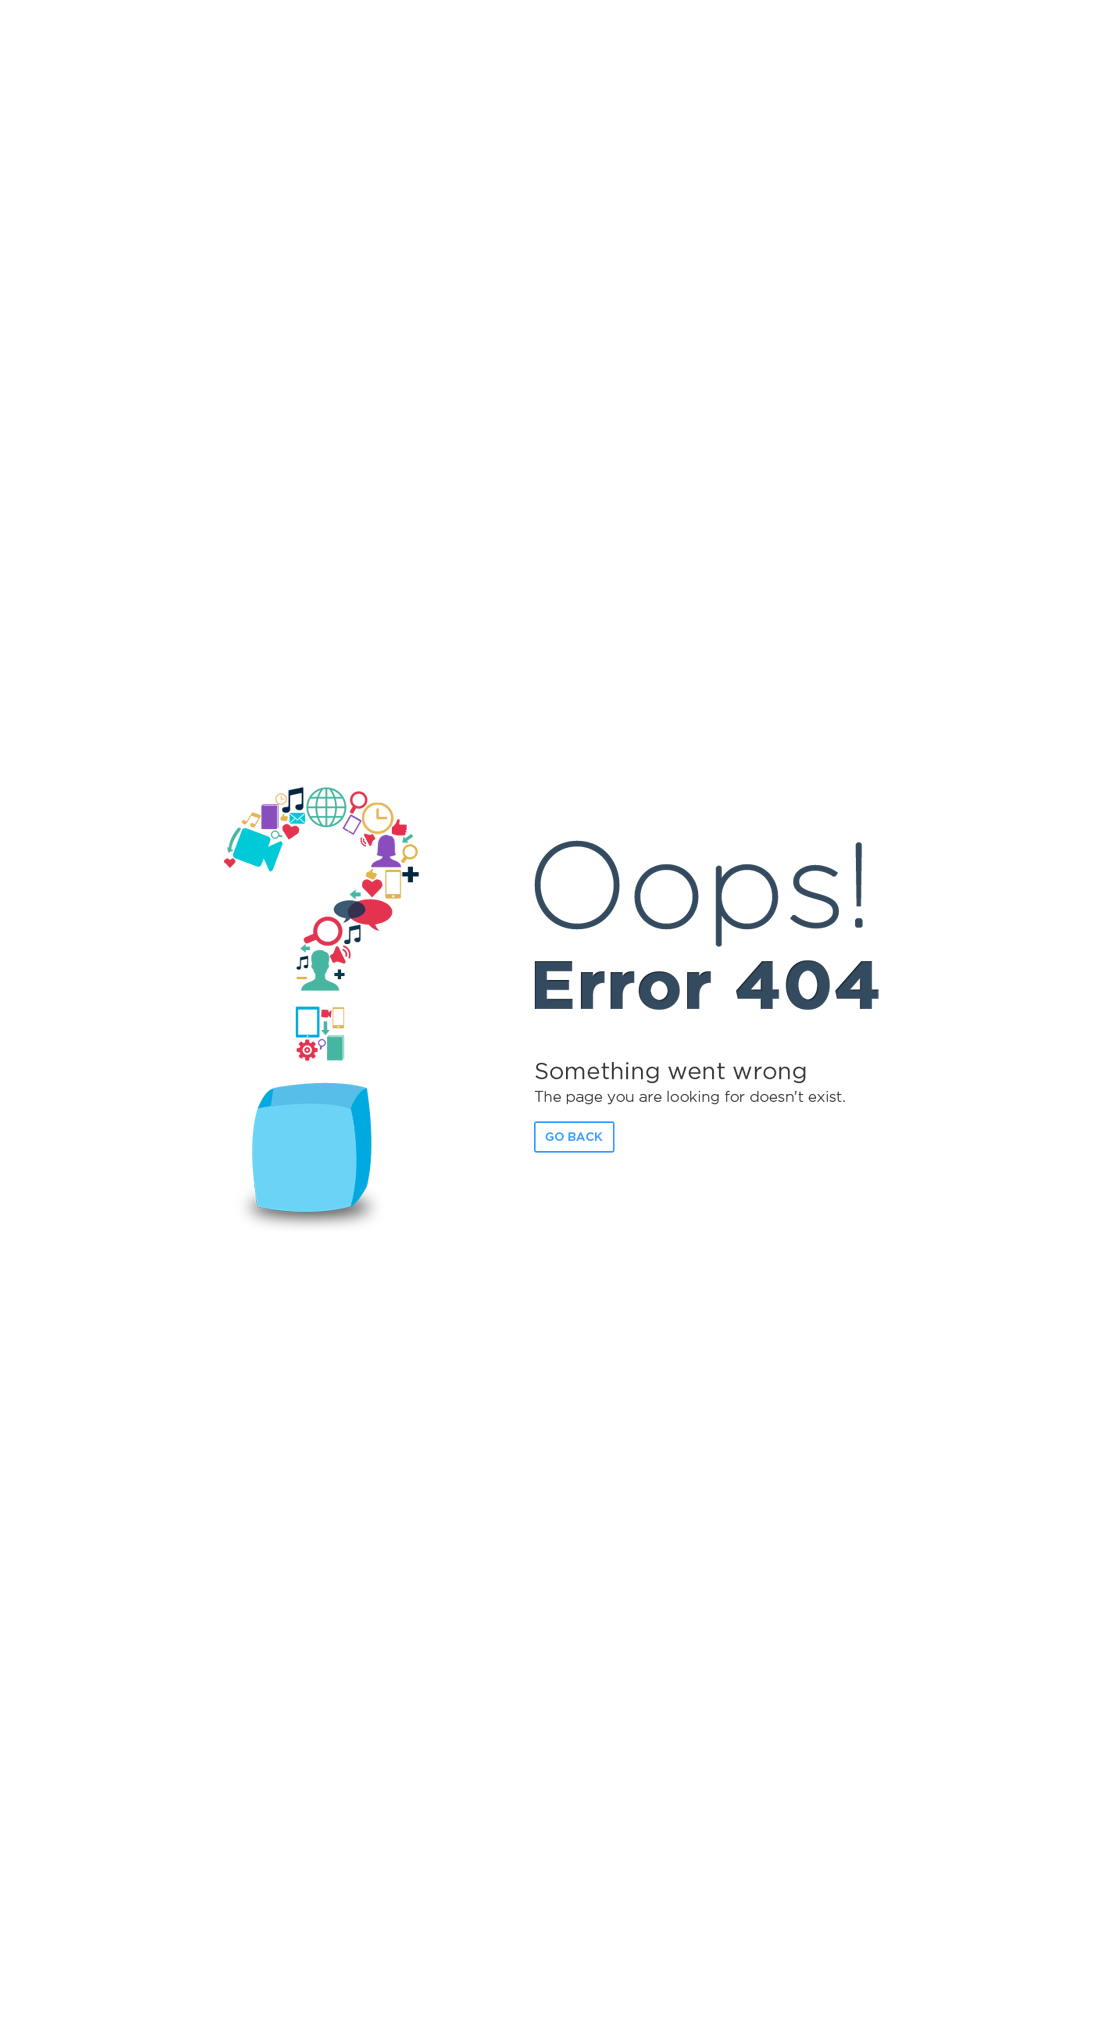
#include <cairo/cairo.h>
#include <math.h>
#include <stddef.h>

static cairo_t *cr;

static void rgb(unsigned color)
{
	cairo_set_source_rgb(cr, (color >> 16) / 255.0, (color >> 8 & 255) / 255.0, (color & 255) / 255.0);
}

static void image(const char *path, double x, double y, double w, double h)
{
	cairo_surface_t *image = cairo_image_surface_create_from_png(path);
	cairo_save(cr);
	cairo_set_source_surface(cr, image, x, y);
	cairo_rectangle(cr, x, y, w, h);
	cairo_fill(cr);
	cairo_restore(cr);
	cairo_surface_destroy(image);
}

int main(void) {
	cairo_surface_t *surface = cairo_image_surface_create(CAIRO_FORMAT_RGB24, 1104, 2026);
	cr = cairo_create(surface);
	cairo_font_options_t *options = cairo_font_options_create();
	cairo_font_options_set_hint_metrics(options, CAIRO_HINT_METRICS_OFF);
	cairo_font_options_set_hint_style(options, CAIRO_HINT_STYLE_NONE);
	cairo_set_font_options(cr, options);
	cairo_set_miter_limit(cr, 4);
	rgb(0xffffff);
	cairo_paint(cr);
	image("img/1.png", 224, 787, 655, 444);
	cairo_surface_write_to_png(surface, "page.png");
	cairo_font_options_destroy(options);
	cairo_destroy(cr);
	cairo_surface_destroy(surface);
	return 0;
}
